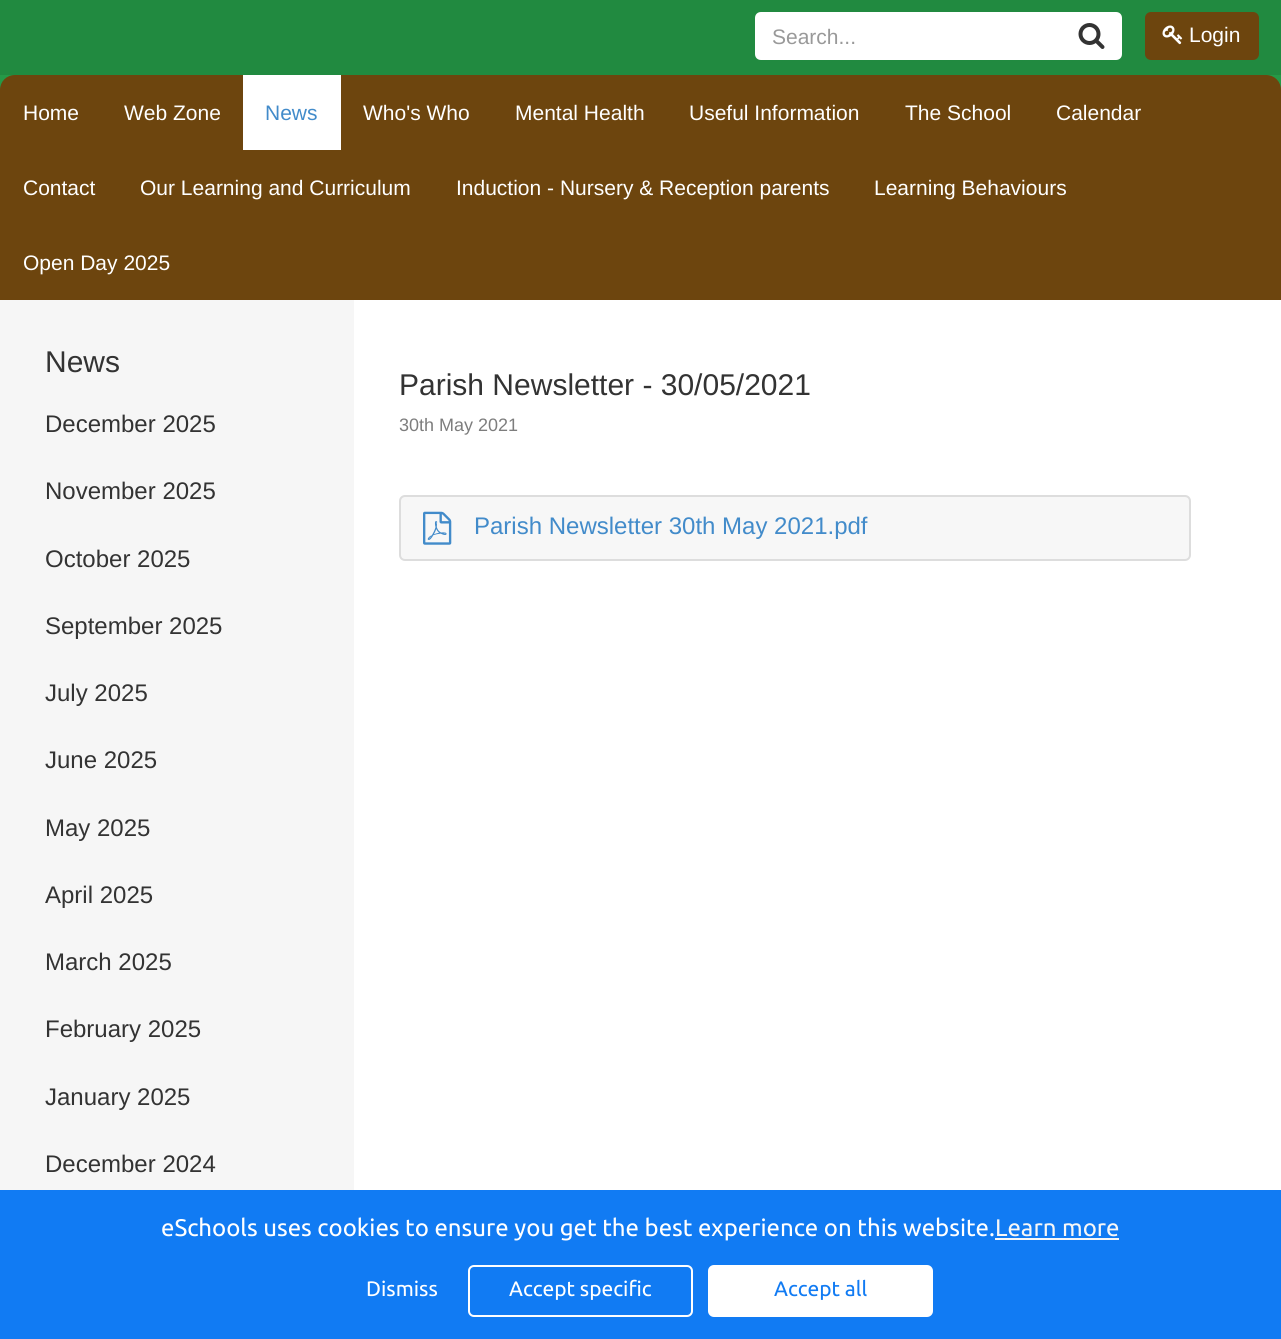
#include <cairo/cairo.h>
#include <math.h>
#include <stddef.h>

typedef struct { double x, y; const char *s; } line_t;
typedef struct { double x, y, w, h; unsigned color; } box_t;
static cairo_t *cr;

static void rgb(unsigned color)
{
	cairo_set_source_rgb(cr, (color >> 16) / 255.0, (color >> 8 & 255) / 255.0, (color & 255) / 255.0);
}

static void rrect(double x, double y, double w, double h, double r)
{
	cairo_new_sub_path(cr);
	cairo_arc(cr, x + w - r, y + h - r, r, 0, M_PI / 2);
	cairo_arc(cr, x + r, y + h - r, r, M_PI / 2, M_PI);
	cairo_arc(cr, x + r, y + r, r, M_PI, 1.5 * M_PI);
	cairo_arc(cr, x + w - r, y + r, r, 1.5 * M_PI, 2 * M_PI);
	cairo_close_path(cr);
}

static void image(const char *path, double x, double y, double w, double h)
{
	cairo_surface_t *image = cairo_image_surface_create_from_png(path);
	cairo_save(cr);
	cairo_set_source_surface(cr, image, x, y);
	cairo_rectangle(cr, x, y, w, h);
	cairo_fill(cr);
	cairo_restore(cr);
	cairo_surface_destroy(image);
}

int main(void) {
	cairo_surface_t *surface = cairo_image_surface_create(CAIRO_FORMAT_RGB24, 1281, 1339);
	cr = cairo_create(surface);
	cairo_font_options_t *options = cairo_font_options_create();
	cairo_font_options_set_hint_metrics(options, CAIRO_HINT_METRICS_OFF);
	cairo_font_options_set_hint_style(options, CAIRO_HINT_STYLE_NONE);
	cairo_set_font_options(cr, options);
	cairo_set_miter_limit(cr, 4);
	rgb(0x259947);
	cairo_paint(cr);
	rgb(0x218a40);
	cairo_rectangle(cr, 0, 0, 1281, 75);
	cairo_fill(cr);
	rgb(0xffffff);
	cairo_new_path(cr);
	cairo_move_to(cr, 761, 12);
	cairo_line_to(cr, 1062, 12);
	cairo_line_to(cr, 1062, 60);
	cairo_line_to(cr, 761, 60);
	cairo_curve_to(cr, 757.5, 60, 755, 57.5, 755, 54);
	cairo_line_to(cr, 755, 18);
	cairo_curve_to(cr, 755, 14.5, 757.5, 12, 761, 12);
	cairo_close_path(cr);
	cairo_fill(cr);
	cairo_new_path(cr);
	cairo_move_to(cr, 1061, 12);
	cairo_line_to(cr, 1116, 12);
	cairo_curve_to(cr, 1119.5, 12, 1122, 14.5, 1122, 18);
	cairo_line_to(cr, 1122, 54);
	cairo_curve_to(cr, 1122, 57.5, 1119.5, 60, 1116, 60);
	cairo_line_to(cr, 1061, 60);
	cairo_close_path(cr);
	cairo_fill(cr);
	image("img/1.png", 1078, 23, 27, 26);
	rgb(0x6d450e);
	rrect(1145, 12, 114, 48, 6);
	cairo_fill(cr);
	image("img/2.png", 1162, 25, 21, 20);
	cairo_new_path(cr);
	cairo_move_to(cr, 15, 75);
	cairo_line_to(cr, 1266, 75);
	cairo_curve_to(cr, 1274.5, 75, 1281, 81.5, 1281, 90);
	cairo_line_to(cr, 1281, 300);
	cairo_line_to(cr, 0, 300);
	cairo_line_to(cr, 0, 90);
	cairo_curve_to(cr, 0, 81.5, 6.5, 75, 15, 75);
	cairo_close_path(cr);
	cairo_fill(cr);
	{
		static const box_t items[] = {
			{243, 75, 98, 75, 0xffffff},
			{354, 300, 927, 890, 0xffffff},
			{0, 300, 354, 890, 0xf6f6f6},
		};
		for (size_t i = 0; i < sizeof items / sizeof *items; i++) {
			rgb(items[i].color);
			cairo_rectangle(cr, items[i].x, items[i].y, items[i].w, items[i].h);
			cairo_fill(cr);
		}
	}
	rgb(0xf7f7f7);
	rrect(400, 496, 790, 64, 5);
	cairo_fill_preserve(cr);
	rgb(0xdddddd);
	cairo_stroke(cr);
	image("img/3.png", 423, 511, 29, 34);
	rgb(0x117bf3);
	cairo_rectangle(cr, 0, 1190, 1281, 149);
	cairo_fill(cr);
	rgb(0xf7f7f7);
	cairo_rectangle(cr, 995, 1238, 124, 2);
	cairo_fill(cr);
	rrect(469, 1266, 223, 50, 5);
	rgb(0xffffff);
	cairo_stroke(cr);
	rrect(709, 1266, 223, 50, 5);
	cairo_fill_preserve(cr);
	cairo_stroke(cr);
	cairo_select_font_face(cr, "Liberation Sans", CAIRO_FONT_SLANT_NORMAL, CAIRO_FONT_WEIGHT_NORMAL);
	cairo_set_font_size(cr, 21);
	rgb(0x999999);
	cairo_move_to(cr, 772, 44);
	cairo_show_text(cr, "Search...");
	rgb(0xffffff);
	{
		static const line_t items[] = {
			{1189, 42, "Login"},
			{23, 120, "Home"},
			{124, 120, "Web Zone"},
		};
		for (size_t i = 0; i < sizeof items / sizeof *items; i++) {
			cairo_move_to(cr, items[i].x, items[i].y);
			cairo_show_text(cr, items[i].s);
		}
	}
	rgb(0x428bca);
	cairo_move_to(cr, 265, 120);
	cairo_show_text(cr, "News");
	rgb(0xffffff);
	{
		static const line_t items[] = {
			{363, 120, "Who's Who"},
			{515, 120, "Mental Health"},
			{689, 120, "Useful Information"},
			{905, 120, "The School"},
			{1056, 120, "Calendar"},
			{23, 195, "Contact"},
			{140, 195, "Our Learning and Curriculum"},
			{456, 195, "Induction - Nursery & Reception parents"},
			{874, 195, "Learning Behaviours"},
			{23, 270, "Open Day 2025"},
		};
		for (size_t i = 0; i < sizeof items / sizeof *items; i++) {
			cairo_move_to(cr, items[i].x, items[i].y);
			cairo_show_text(cr, items[i].s);
		}
	}
	cairo_set_font_size(cr, 30);
	rgb(0x333333);
	cairo_move_to(cr, 45, 372);
	cairo_show_text(cr, "News");
	cairo_set_font_size(cr, 24);
	{
		static const line_t items[] = {
			{45, 432, "December 2025"},
			{45, 499, "November 2025"},
			{45, 567, "October 2025"},
			{45, 634, "September 2025"},
			{45, 701, "July 2025"},
			{45, 768, "June 2025"},
			{45, 836, "May 2025"},
			{45, 903, "April 2025"},
			{45, 970, "March 2025"},
			{45, 1037, "February 2025"},
			{45, 1105, "January 2025"},
			{45, 1172, "December 2024"},
		};
		for (size_t i = 0; i < sizeof items / sizeof *items; i++) {
			cairo_move_to(cr, items[i].x, items[i].y);
			cairo_show_text(cr, items[i].s);
		}
	}
	cairo_set_font_size(cr, 30);
	cairo_move_to(cr, 399, 395);
	cairo_show_text(cr, "Parish Newsletter - 30/05/2021");
	cairo_set_font_size(cr, 18);
	rgb(0x7d7d7d);
	cairo_move_to(cr, 399, 431);
	cairo_show_text(cr, "30th May 2021");
	cairo_set_font_size(cr, 24);
	rgb(0x428bca);
	cairo_move_to(cr, 474, 534);
	cairo_show_text(cr, "Parish Newsletter 30th May 2021.pdf");
	cairo_select_font_face(cr, "Ubuntu", CAIRO_FONT_SLANT_NORMAL, CAIRO_FONT_WEIGHT_NORMAL);
	rgb(0xffffff);
	cairo_move_to(cr, 161, 1236);
	cairo_show_text(cr, "eSchools uses cookies to ensure you get the best experience on this website.");
	rgb(0xf7f7f7);
	cairo_move_to(cr, 995, 1236);
	cairo_show_text(cr, "Learn more");
	cairo_set_font_size(cr, 21);
	rgb(0xffffff);
	cairo_move_to(cr, 366, 1296);
	cairo_show_text(cr, "Dismiss");
	cairo_move_to(cr, 509, 1296);
	cairo_show_text(cr, "Accept specific");
	rgb(0x117bf3);
	cairo_move_to(cr, 774, 1296);
	cairo_show_text(cr, "Accept all");
	cairo_surface_write_to_png(surface, "page.png");
	cairo_font_options_destroy(options);
	cairo_destroy(cr);
	cairo_surface_destroy(surface);
	return 0;
}
